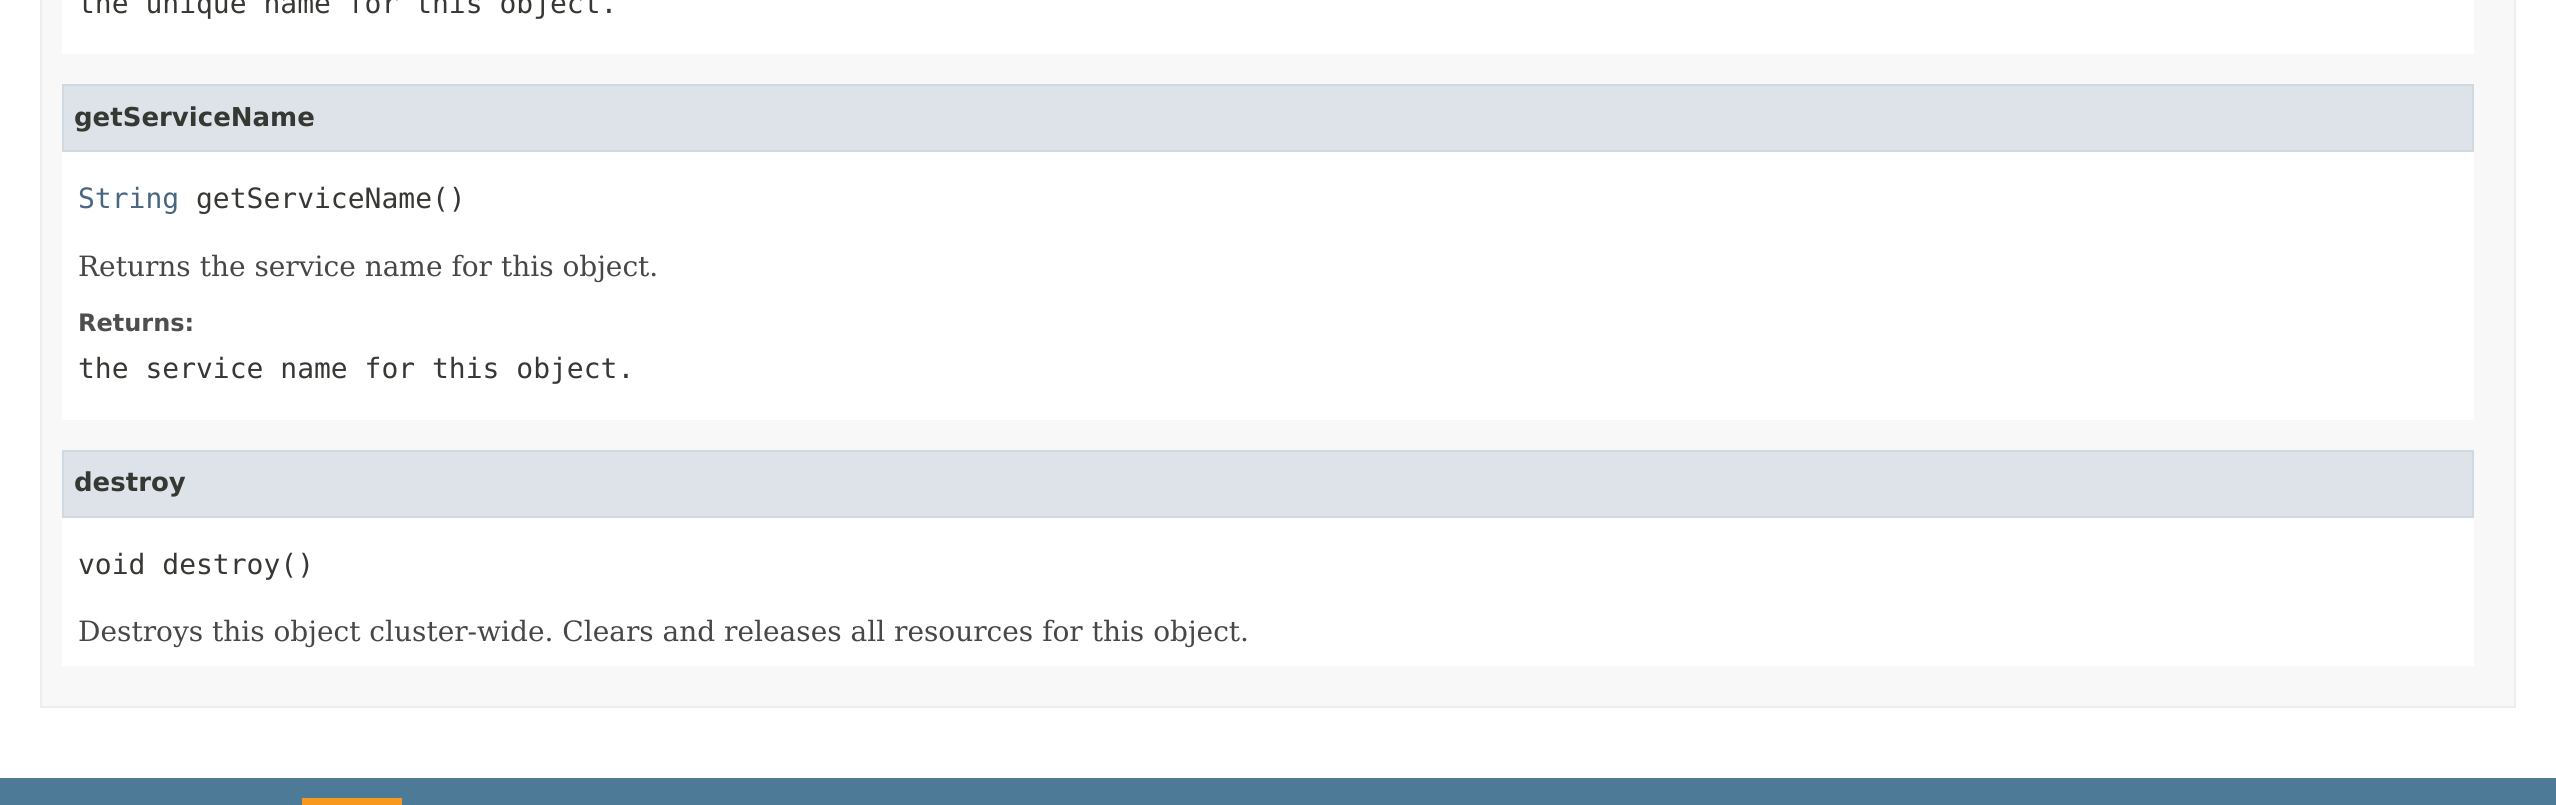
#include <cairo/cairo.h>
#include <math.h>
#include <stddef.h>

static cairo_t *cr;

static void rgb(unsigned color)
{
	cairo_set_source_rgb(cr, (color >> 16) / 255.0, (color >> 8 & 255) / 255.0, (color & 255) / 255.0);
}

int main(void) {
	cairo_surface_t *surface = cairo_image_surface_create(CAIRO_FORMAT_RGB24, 2556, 805);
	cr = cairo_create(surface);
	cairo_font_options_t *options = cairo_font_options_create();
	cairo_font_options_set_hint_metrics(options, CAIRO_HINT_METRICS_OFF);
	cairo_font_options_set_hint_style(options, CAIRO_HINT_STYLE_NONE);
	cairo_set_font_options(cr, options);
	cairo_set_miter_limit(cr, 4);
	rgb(0xffffff);
	cairo_paint(cr);
	rgb(0xf8f8f8);
	cairo_rectangle(cr, 41, -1, 2474, 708);
	cairo_fill_preserve(cr);
	rgb(0xededed);
	cairo_stroke(cr);
	rgb(0xffffff);
	cairo_rectangle(cr, 62, 0, 2412, 54);
	cairo_fill(cr);
	cairo_rectangle(cr, 62, 152, 2412, 268);
	cairo_fill(cr);
	rgb(0xdee3e9);
	cairo_rectangle(cr, 63, 85, 2410, 66);
	cairo_fill_preserve(cr);
	rgb(0xd0d9e0);
	cairo_stroke(cr);
	rgb(0xffffff);
	cairo_rectangle(cr, 62, 518, 2412, 148);
	cairo_fill(cr);
	rgb(0xdee3e9);
	cairo_rectangle(cr, 63, 451, 2410, 66);
	cairo_fill_preserve(cr);
	rgb(0xd0d9e0);
	cairo_stroke(cr);
	rgb(0x4d7a97);
	cairo_rectangle(cr, 0, 778, 2556, 27);
	cairo_fill(cr);
	rgb(0xf8981d);
	cairo_rectangle(cr, 302, 798, 100, 7);
	cairo_fill(cr);
	cairo_select_font_face(cr, "DejaVu Sans Mono", CAIRO_FONT_SLANT_NORMAL, CAIRO_FONT_WEIGHT_NORMAL);
	cairo_set_font_size(cr, 28);
	rgb(0x353833);
	cairo_move_to(cr, 78, 13);
	cairo_show_text(cr, "the unique name for this object.");
	cairo_select_font_face(cr, "DejaVu Sans", CAIRO_FONT_SLANT_NORMAL, CAIRO_FONT_WEIGHT_BOLD);
	cairo_set_font_size(cr, 26);
	cairo_move_to(cr, 74, 126);
	cairo_show_text(cr, "getServiceName");
	cairo_select_font_face(cr, "DejaVu Sans Mono", CAIRO_FONT_SLANT_NORMAL, CAIRO_FONT_WEIGHT_NORMAL);
	cairo_set_font_size(cr, 28);
	rgb(0x4a6782);
	cairo_move_to(cr, 78, 208);
	cairo_show_text(cr, "String");
	rgb(0x353833);
	cairo_move_to(cr, 196, 208);
	cairo_show_text(cr, "getServiceName()");
	cairo_select_font_face(cr, "DejaVu Serif", CAIRO_FONT_SLANT_NORMAL, CAIRO_FONT_WEIGHT_NORMAL);
	rgb(0x474747);
	cairo_move_to(cr, 78, 276);
	cairo_show_text(cr, "Returns the service name for this object.");
	cairo_select_font_face(cr, "DejaVu Sans", CAIRO_FONT_SLANT_NORMAL, CAIRO_FONT_WEIGHT_BOLD);
	cairo_set_font_size(cr, 24);
	rgb(0x4e4e4e);
	cairo_move_to(cr, 78, 331);
	cairo_show_text(cr, "Returns:");
	cairo_select_font_face(cr, "DejaVu Sans Mono", CAIRO_FONT_SLANT_NORMAL, CAIRO_FONT_WEIGHT_NORMAL);
	cairo_set_font_size(cr, 28);
	rgb(0x353833);
	cairo_move_to(cr, 78, 378);
	cairo_show_text(cr, "the service name for this object.");
	cairo_select_font_face(cr, "DejaVu Sans", CAIRO_FONT_SLANT_NORMAL, CAIRO_FONT_WEIGHT_BOLD);
	cairo_set_font_size(cr, 26);
	cairo_move_to(cr, 74, 491);
	cairo_show_text(cr, "destroy");
	cairo_select_font_face(cr, "DejaVu Sans Mono", CAIRO_FONT_SLANT_NORMAL, CAIRO_FONT_WEIGHT_NORMAL);
	cairo_set_font_size(cr, 28);
	cairo_move_to(cr, 78, 574);
	cairo_show_text(cr, "void destroy()");
	cairo_select_font_face(cr, "DejaVu Serif", CAIRO_FONT_SLANT_NORMAL, CAIRO_FONT_WEIGHT_NORMAL);
	rgb(0x474747);
	cairo_move_to(cr, 78, 641);
	cairo_show_text(cr, "Destroys this object cluster-wide. Clears and releases all resources for this object.");
	cairo_surface_write_to_png(surface, "page.png");
	cairo_font_options_destroy(options);
	cairo_destroy(cr);
	cairo_surface_destroy(surface);
	return 0;
}
